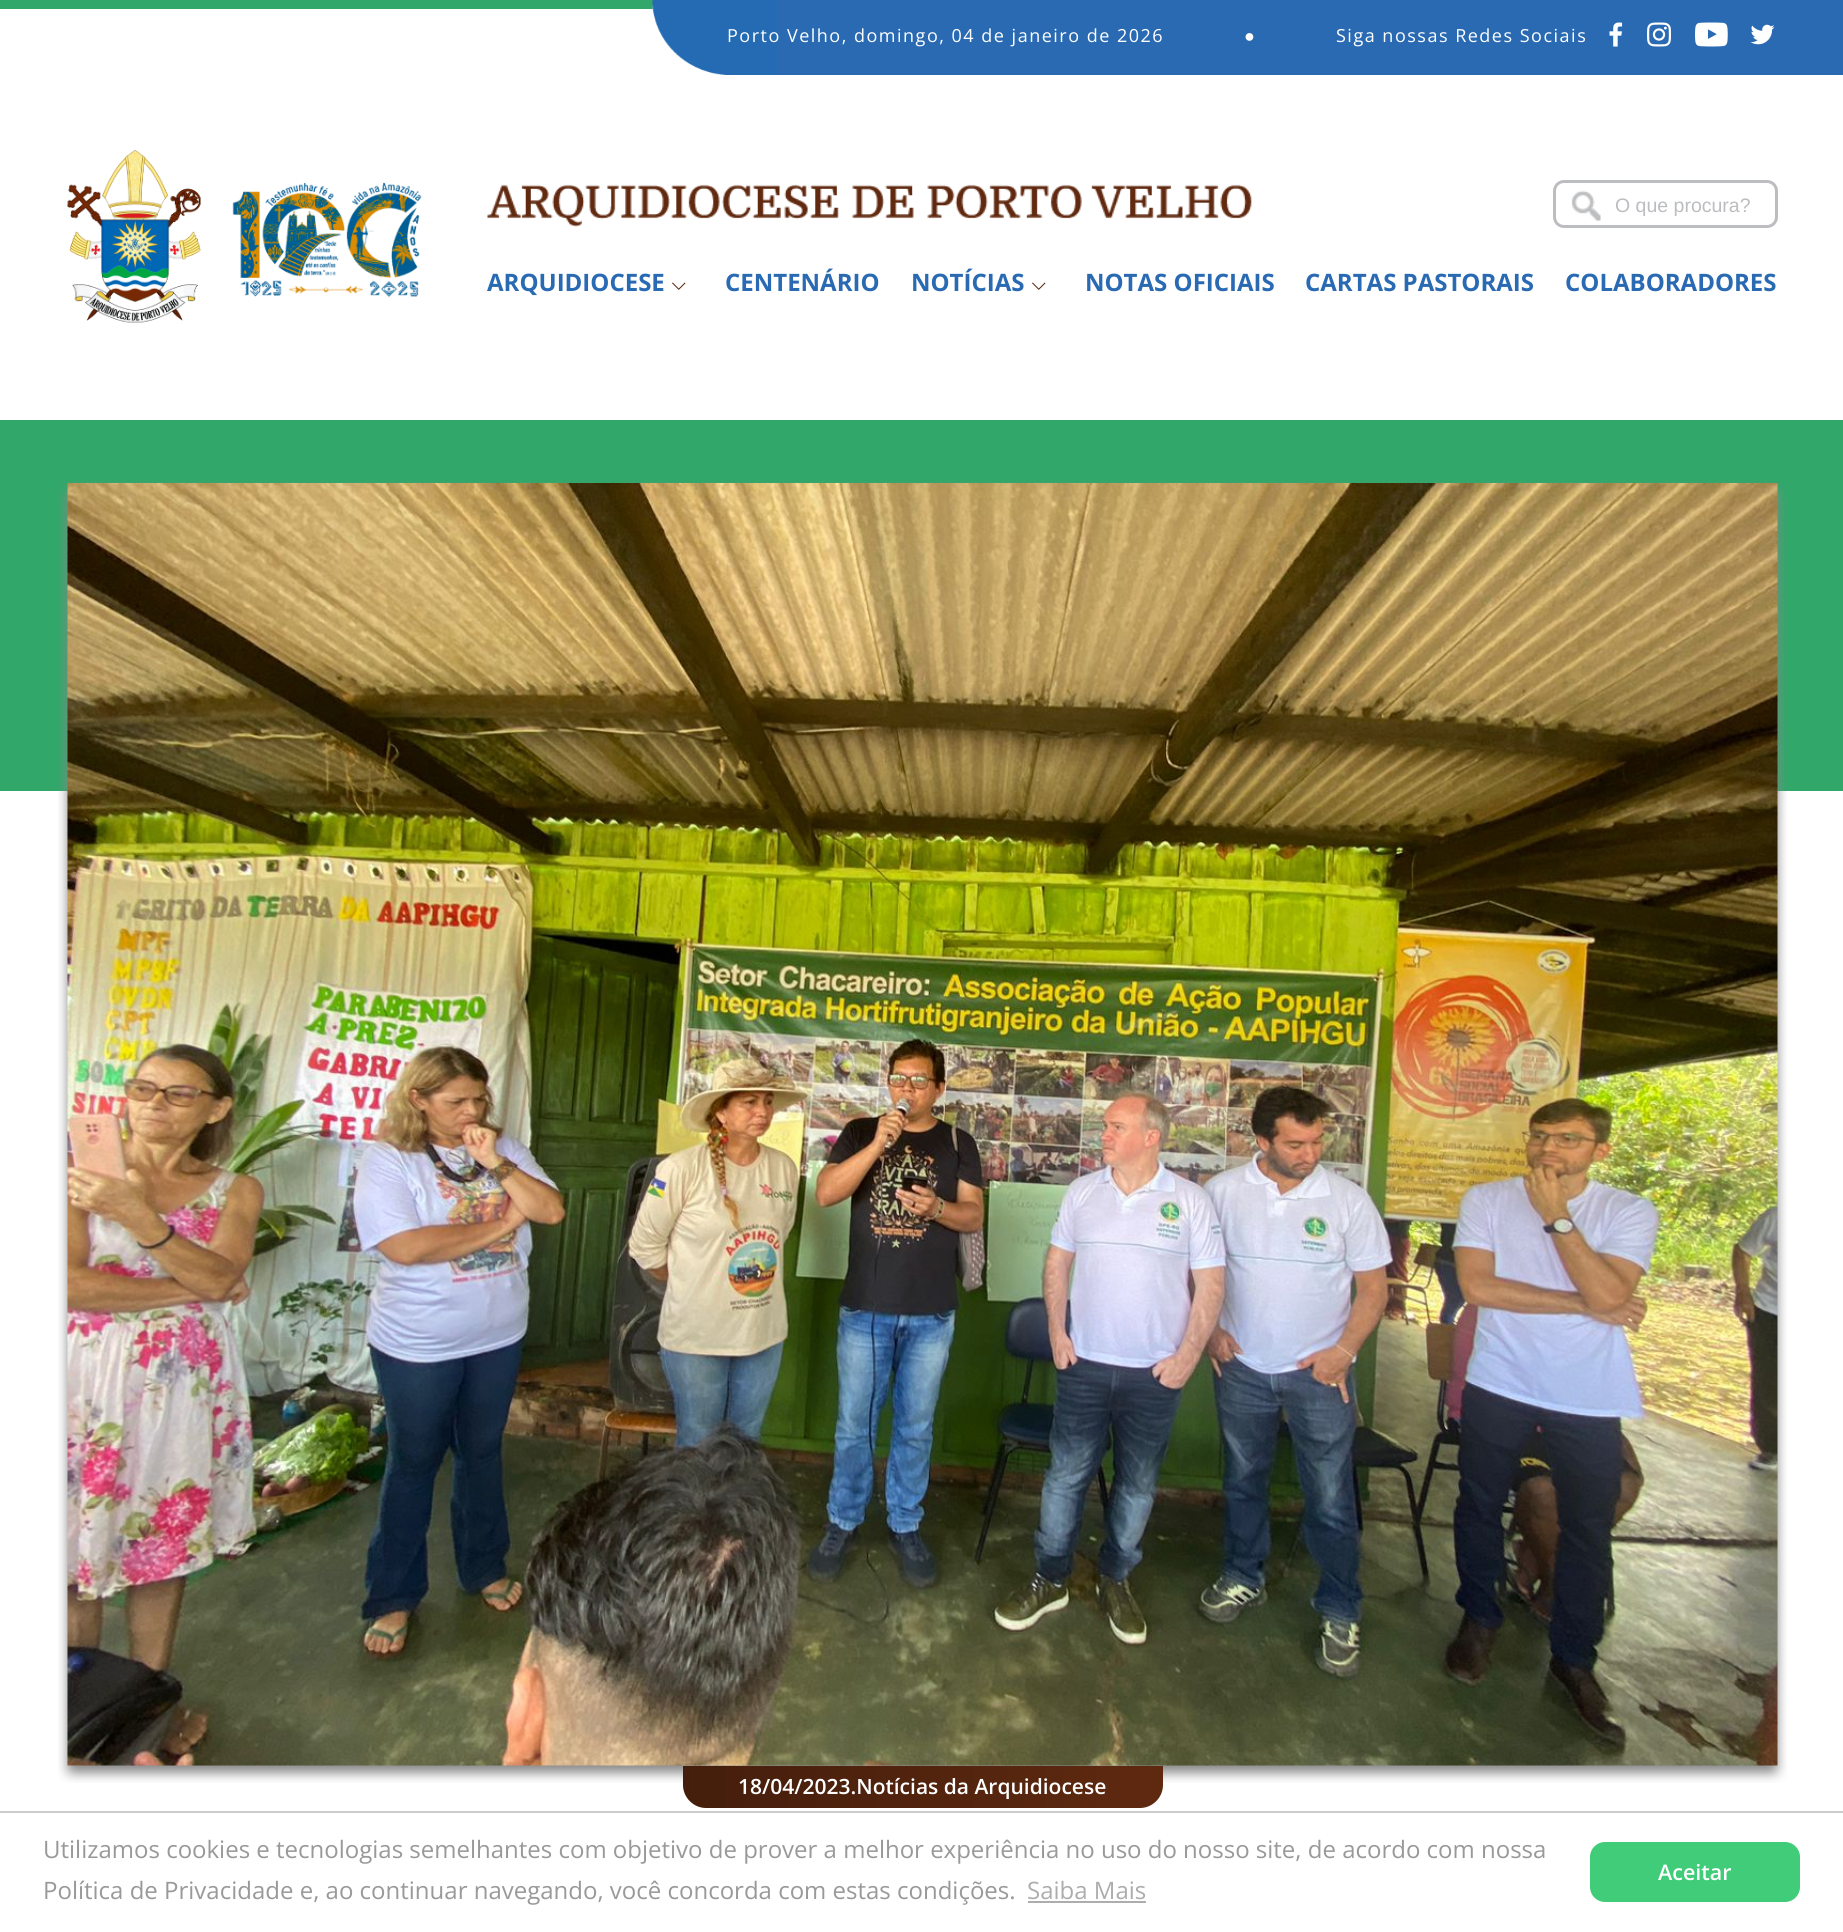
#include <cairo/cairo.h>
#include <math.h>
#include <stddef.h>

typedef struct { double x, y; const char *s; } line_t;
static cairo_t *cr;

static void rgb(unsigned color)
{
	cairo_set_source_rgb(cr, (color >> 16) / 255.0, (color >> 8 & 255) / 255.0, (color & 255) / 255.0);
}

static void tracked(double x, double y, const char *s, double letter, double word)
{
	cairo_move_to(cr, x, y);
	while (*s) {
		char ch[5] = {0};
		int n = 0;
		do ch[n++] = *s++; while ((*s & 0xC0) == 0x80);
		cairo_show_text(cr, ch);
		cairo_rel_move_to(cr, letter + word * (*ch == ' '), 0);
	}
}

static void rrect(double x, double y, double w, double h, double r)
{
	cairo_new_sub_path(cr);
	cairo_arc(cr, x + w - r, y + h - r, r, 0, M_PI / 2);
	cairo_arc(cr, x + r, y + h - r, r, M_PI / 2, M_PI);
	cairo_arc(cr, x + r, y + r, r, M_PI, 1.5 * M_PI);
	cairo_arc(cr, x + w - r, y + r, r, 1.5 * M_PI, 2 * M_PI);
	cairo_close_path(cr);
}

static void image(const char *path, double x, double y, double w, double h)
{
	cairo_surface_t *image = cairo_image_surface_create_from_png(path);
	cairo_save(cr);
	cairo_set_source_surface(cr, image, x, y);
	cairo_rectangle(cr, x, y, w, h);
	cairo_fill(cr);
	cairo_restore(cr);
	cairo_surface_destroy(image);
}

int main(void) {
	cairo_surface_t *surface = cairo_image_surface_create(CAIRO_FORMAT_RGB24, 1843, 1932);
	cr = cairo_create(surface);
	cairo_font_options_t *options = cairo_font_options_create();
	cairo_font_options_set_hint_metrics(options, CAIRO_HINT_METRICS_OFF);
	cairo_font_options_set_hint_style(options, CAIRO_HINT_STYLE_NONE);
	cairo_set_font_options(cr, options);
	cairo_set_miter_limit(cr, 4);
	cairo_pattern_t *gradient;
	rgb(0xffffff);
	cairo_paint(cr);
	rgb(0x31a76a);
	cairo_rectangle(cr, 0, 0, 653, 9);
	cairo_fill(cr);
	rgb(0x296ab3);
	cairo_rectangle(cr, 777, 0, 1066, 75);
	cairo_fill(cr);
	image("img/1.png", 652, 0, 125, 75);
	image("img/2.png", 1609, 22, 14, 25);
	image("img/3.png", 1647, 22, 24, 25);
	image("img/4.png", 1695, 22, 33, 25);
	image("img/5.png", 1750, 24, 25, 21);
	image("img/6.png", 67, 150, 355, 173);
	image("img/7.png", 487, 184, 765, 43);
	image("img/8.png", 1571, 190, 30, 31);
	rrect(1554.5, 181.5, 222, 45, 9.5);
	rgb(0xbbbdc0);
	cairo_set_line_width(cr, 3);
	cairo_stroke(cr);
	image("img/9.png", 672, 282, 14, 8);
	image("img/9.png", 1032, 282, 14, 8);
	rgb(0x31a76a);
	cairo_rectangle(cr, 0, 420, 1843, 371);
	cairo_fill(cr);
	image("img/10.png", 58, 481, 1729, 1302);
	gradient = cairo_pattern_create_linear(683, 1787, 1163, 1787);
	cairo_pattern_add_color_stop_rgba(gradient, 0, 0.267, 0.118, 0.047, 1);
	cairo_pattern_add_color_stop_rgba(gradient, 1, 0.373, 0.161, 0.063, 1);
	cairo_set_source(cr, gradient);
	cairo_pattern_destroy(gradient);
	cairo_new_path(cr);
	cairo_move_to(cr, 683, 1766);
	cairo_line_to(cr, 1163, 1766);
	cairo_line_to(cr, 1163, 1785);
	cairo_curve_to(cr, 1163, 1797.5, 1152.5, 1808, 1140, 1808);
	cairo_line_to(cr, 706, 1808);
	cairo_curve_to(cr, 693.5, 1808, 683, 1797.5, 683, 1785);
	cairo_close_path(cr);
	cairo_fill(cr);
	rgb(0xcccccc);
	cairo_rectangle(cr, 0, 1811, 1843, 2);
	cairo_fill(cr);
	rgb(0xadadad);
	cairo_rectangle(cr, 1028, 1901, 118, 2);
	cairo_fill(cr);
	rgb(0x40cc79);
	rrect(1590, 1842, 210, 60, 15);
	cairo_fill(cr);
	cairo_select_font_face(cr, "Open Sans", CAIRO_FONT_SLANT_NORMAL, CAIRO_FONT_WEIGHT_NORMAL);
	cairo_set_font_size(cr, 18);
	rgb(0xffffff);
	tracked(727, 42, "Porto Velho, domingo, 04 de janeiro de 2026", 1.5, 0);
	cairo_select_font_face(cr, "Liberation Sans", CAIRO_FONT_SLANT_NORMAL, CAIRO_FONT_WEIGHT_NORMAL);
	tracked(1244, 42, "●", 1.5, 0);
	cairo_select_font_face(cr, "Open Sans", CAIRO_FONT_SLANT_NORMAL, CAIRO_FONT_WEIGHT_NORMAL);
	tracked(1336, 42, "Siga nossas Redes Sociais", 1.5, 0);
	cairo_save(cr);
	cairo_rectangle(cr, 1616, 194, 144, 22);
	cairo_clip(cr);
	cairo_select_font_face(cr, "Liberation Sans", CAIRO_FONT_SLANT_NORMAL, CAIRO_FONT_WEIGHT_NORMAL);
	cairo_set_font_size(cr, 19.5);
	rgb(0xbbbdc0);
	cairo_move_to(cr, 1615, 212);
	cairo_show_text(cr, "O que procura?");
	cairo_restore(cr);
	cairo_select_font_face(cr, "Open Sans", CAIRO_FONT_SLANT_NORMAL, CAIRO_FONT_WEIGHT_BOLD);
	cairo_set_font_size(cr, 24);
	rgb(0x296ab3);
	{
		static const line_t items[] = {
			{487, 291, "ARQUIDIOCESE"},
			{725, 291, "CENTENÁRIO"},
			{911, 291, "NOTÍCIAS"},
			{1085, 291, "NOTAS OFICIAIS"},
			{1305, 291, "CARTAS PASTORAIS"},
			{1565, 291, "COLABORADORES"},
		};
		for (size_t i = 0; i < sizeof items / sizeof *items; i++) {
			cairo_move_to(cr, items[i].x, items[i].y);
			cairo_show_text(cr, items[i].s);
		}
	}
	cairo_select_font_face(cr, "Open Sans SemiBold", CAIRO_FONT_SLANT_NORMAL, CAIRO_FONT_WEIGHT_NORMAL);
	cairo_set_font_size(cr, 21);
	rgb(0xffffff);
	cairo_move_to(cr, 738, 1794);
	cairo_show_text(cr, "18/04/2023.Notícias da Arquidiocese");
	cairo_select_font_face(cr, "Open Sans", CAIRO_FONT_SLANT_NORMAL, CAIRO_FONT_WEIGHT_NORMAL);
	cairo_set_font_size(cr, 24);
	rgb(0x999999);
	cairo_move_to(cr, 43, 1858);
	cairo_show_text(cr, "Utilizamos cookies e tecnologias semelhantes com objetivo de prover a melhor experiência no uso do nosso site, de acordo com nossa");
	cairo_move_to(cr, 43, 1899);
	cairo_show_text(cr, "Política de Privacidade e, ao continuar navegando, você concorda com estas condições.");
	rgb(0xadadad);
	cairo_move_to(cr, 1027, 1899);
	cairo_show_text(cr, "Saiba Mais");
	cairo_select_font_face(cr, "Open Sans SemiBold", CAIRO_FONT_SLANT_NORMAL, CAIRO_FONT_WEIGHT_NORMAL);
	cairo_set_font_size(cr, 21.5);
	rgb(0xffffff);
	cairo_move_to(cr, 1658, 1880);
	cairo_show_text(cr, "Aceitar");
	cairo_surface_write_to_png(surface, "page.png");
	cairo_font_options_destroy(options);
	cairo_destroy(cr);
	cairo_surface_destroy(surface);
	return 0;
}
